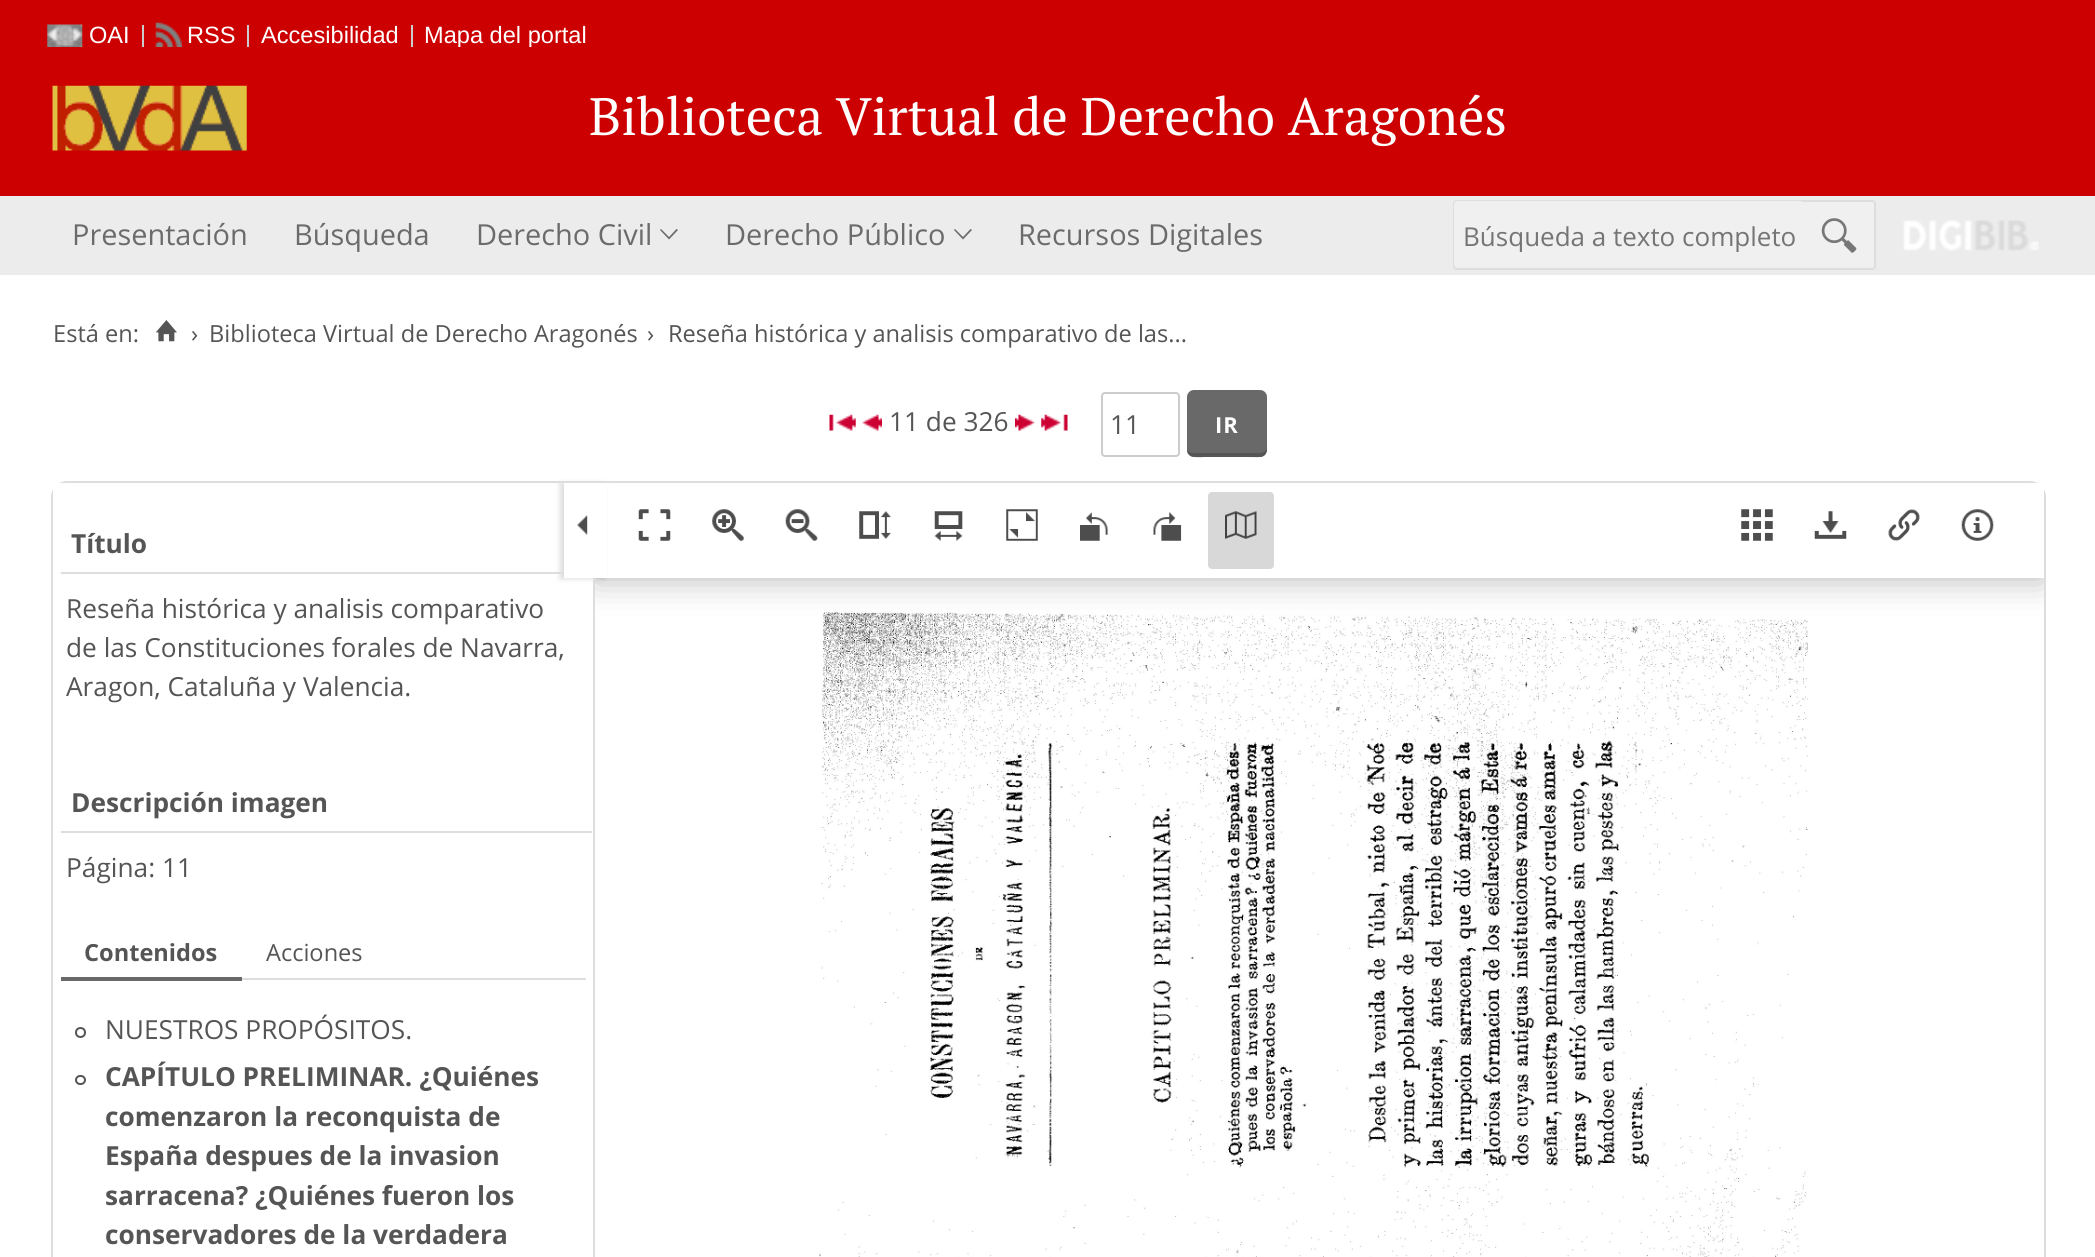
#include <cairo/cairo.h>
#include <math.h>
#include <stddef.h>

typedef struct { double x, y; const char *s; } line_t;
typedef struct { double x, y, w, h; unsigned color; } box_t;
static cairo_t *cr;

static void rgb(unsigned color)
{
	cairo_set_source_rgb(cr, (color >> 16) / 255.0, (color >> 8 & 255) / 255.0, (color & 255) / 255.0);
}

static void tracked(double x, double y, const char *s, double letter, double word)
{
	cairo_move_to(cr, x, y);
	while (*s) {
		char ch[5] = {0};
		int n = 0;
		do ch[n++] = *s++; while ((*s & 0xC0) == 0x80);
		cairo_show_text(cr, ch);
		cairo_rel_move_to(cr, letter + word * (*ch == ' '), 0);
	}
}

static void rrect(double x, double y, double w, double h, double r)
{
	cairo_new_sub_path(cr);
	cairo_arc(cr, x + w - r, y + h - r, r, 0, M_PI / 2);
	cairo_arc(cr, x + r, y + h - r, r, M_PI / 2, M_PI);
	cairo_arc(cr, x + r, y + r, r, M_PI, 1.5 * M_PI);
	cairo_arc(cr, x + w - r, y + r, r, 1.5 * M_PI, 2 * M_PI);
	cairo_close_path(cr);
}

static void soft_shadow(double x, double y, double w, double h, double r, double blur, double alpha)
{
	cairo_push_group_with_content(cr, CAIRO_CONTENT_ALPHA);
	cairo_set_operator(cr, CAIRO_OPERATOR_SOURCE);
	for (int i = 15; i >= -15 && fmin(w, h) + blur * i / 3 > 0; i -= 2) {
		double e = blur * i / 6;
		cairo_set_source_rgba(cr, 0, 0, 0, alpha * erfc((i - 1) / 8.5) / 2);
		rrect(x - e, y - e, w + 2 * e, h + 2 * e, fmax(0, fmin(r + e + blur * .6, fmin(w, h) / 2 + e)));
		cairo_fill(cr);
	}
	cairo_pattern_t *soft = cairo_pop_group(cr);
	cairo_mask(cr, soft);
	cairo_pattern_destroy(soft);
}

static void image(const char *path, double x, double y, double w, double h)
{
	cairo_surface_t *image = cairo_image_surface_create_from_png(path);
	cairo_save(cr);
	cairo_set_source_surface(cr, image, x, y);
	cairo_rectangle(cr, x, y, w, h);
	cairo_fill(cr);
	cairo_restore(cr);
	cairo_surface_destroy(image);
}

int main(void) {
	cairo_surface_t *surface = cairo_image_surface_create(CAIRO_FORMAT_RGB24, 2095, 1257);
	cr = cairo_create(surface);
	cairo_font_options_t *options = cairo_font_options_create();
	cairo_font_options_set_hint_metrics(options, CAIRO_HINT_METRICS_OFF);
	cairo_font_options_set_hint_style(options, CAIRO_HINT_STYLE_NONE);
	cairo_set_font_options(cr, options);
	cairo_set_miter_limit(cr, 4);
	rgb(0xffffff);
	cairo_paint(cr);
	rgb(0xcc0000);
	cairo_rectangle(cr, 0, 0, 2095, 47);
	cairo_fill(cr);
	image("img/1.png", 47, 24, 36, 23);
	rgb(0xcccccc);
	cairo_rectangle(cr, 142, 25, 2, 22);
	cairo_fill(cr);
	image("img/2.png", 155, 22, 27, 25);
	{
		static const box_t items[] = {
			{247, 25, 2, 22, 0xcccccc},
			{411, 25, 2, 22, 0xcccccc},
			{0, 196, 2095, 79, 0xececec},
		};
		for (size_t i = 0; i < sizeof items / sizeof *items; i++) {
			rgb(items[i].color);
			cairo_rectangle(cr, items[i].x, items[i].y, items[i].w, items[i].h);
			cairo_fill(cr);
		}
	}
	rgb(0x6b6b6b);
	cairo_new_path(cr);
	cairo_move_to(cr, 676.5, 229);
	cairo_line_to(cr, 678, 230);
	cairo_line_to(cr, 669, 239.5);
	cairo_line_to(cr, 660, 230);
	cairo_line_to(cr, 661, 229);
	cairo_line_to(cr, 669, 237);
	cairo_close_path(cr);
	cairo_fill(cr);
	cairo_new_path(cr);
	cairo_move_to(cr, 970.5, 229);
	cairo_line_to(cr, 972, 230);
	cairo_line_to(cr, 963, 239.5);
	cairo_line_to(cr, 954, 230);
	cairo_line_to(cr, 955, 229);
	cairo_line_to(cr, 963, 237);
	cairo_close_path(cr);
	cairo_fill(cr);
	rgb(0xf0f0f0);
	rrect(1454, 201, 421, 68, 3);
	cairo_fill_preserve(cr);
	rgb(0xdddddd);
	cairo_stroke(cr);
	rgb(0xf0f0f0);
	rrect(1454, 201, 350, 67, 4);
	cairo_fill(cr);
	image("img/4.png", 1821, 218, 36, 35);
	image("img/5.png", 1903, 220, 136, 31);
	image("img/6.png", 155, 320, 22, 22);
	image("img/7.png", 829, 414, 27, 17);
	image("img/8.png", 862, 414, 20, 17);
	image("img/9.png", 1015, 414, 20, 17);
	image("img/10.png", 1041, 414, 27, 17);
	rrect(1102, 393, 77, 63, 3);
	rgb(0xcccccc);
	cairo_stroke(cr);
	rgb(0x696969);
	rrect(1187, 390, 80, 67, 7);
	cairo_fill(cr);
	rgb(0x555555);
	cairo_new_path(cr);
	cairo_move_to(cr, 1187, 449);
	cairo_curve_to(cr, 1187, 459, 1198, 457, 1205, 457);
	cairo_line_to(cr, 1249, 457);
	cairo_curve_to(cr, 1261, 457, 1267, 459, 1267, 446);
	cairo_curve_to(cr, 1267, 450, 1264, 453, 1260, 453);
	cairo_line_to(cr, 1194, 453);
	cairo_curve_to(cr, 1191, 453, 1188, 452, 1187, 449);
	cairo_close_path(cr);
	cairo_fill(cr);
	rrect(52, 482, 1993, 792, 15);
	rgb(0xdddddd);
	cairo_stroke(cr);
	{
		static const box_t items[] = {
			{53, 483, 13, 13, 0xffffff},
			{593, 578, 2, 679, 0xdddddd},
			{61, 572, 503, 2, 0xdddddd},
			{61, 831, 531, 2, 0xdddddd},
			{242, 978, 344, 2, 0xdddddd},
			{61, 977, 181, 4, 0x696969},
		};
		for (size_t i = 0; i < sizeof items / sizeof *items; i++) {
			rgb(items[i].color);
			cairo_rectangle(cr, items[i].x, items[i].y, items[i].w, items[i].h);
			cairo_fill(cr);
		}
	}
	cairo_arc(cr, 80.5, 1032.5, 4.5, 0, 2 * M_PI);
	rgb(0x555555);
	cairo_stroke(cr);
	rrect(76, 1076, 9, 8, 4);
	cairo_stroke(cr);
	rgb(0xdddddd);
	soft_shadow(560, 483, 44, 96, 0, 2.5, 1);
	rgb(0xffffff);
	cairo_rectangle(cr, 564, 483, 43, 95);
	cairo_fill(cr);
	image("img/11.png", 577, 515, 11, 20);
	cairo_rectangle(cr, 2031, 483, 13, 13);
	cairo_fill(cr);
	image("img/25.png", 819, 611, 989, 646);
	cairo_save(cr);
	cairo_rectangle(cr, 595, 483, 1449, 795);
	cairo_clip(cr);
	cairo_set_fill_rule(cr, CAIRO_FILL_RULE_EVEN_ODD);
	cairo_new_path(cr);
	cairo_move_to(cr, 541, 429);
	cairo_line_to(cr, 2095, 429);
	cairo_line_to(cr, 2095, 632);
	cairo_line_to(cr, 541, 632);
	cairo_close_path(cr);
	cairo_move_to(cr, 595, 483);
	cairo_line_to(cr, 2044, 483);
	cairo_line_to(cr, 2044, 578);
	cairo_line_to(cr, 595, 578);
	cairo_close_path(cr);
	cairo_clip(cr);
	rgb(0x000000);
	soft_shadow(595, 483, 1449, 95, 0, 17.5, 0.3);
	cairo_restore(cr);
	image("img/12.png", 638, 509, 33, 32);
	image("img/13.png", 712, 509, 32, 32);
	image("img/14.png", 785, 509, 33, 32);
	image("img/15.png", 859, 511, 32, 28);
	image("img/16.png", 934, 511, 29, 30);
	image("img/17.png", 1006, 509, 32, 32);
	image("img/18.png", 1080, 512, 28, 29);
	image("img/19.png", 1153, 512, 29, 29);
	rgb(0xd8d8d8);
	rrect(1208, 492, 66, 77, 4);
	cairo_fill(cr);
	image("img/20.png", 1225, 511, 32, 28);
	image("img/21.png", 1741, 509, 32, 32);
	image("img/22.png", 1814, 511, 33, 28);
	image("img/23.png", 1888, 509, 32, 32);
	image("img/24.png", 1961, 509, 33, 32);
	cairo_select_font_face(cr, "Liberation Sans", CAIRO_FONT_SLANT_NORMAL, CAIRO_FONT_WEIGHT_NORMAL);
	cairo_set_font_size(cr, 23.6);
	rgb(0xffffff);
	{
		static const line_t items[] = {
			{89, 43, "OAI"},
			{187, 43, "RSS"},
			{261, 43, "Accesibilidad"},
			{424, 43, "Mapa del portal"},
		};
		for (size_t i = 0; i < sizeof items / sizeof *items; i++) {
			cairo_move_to(cr, items[i].x, items[i].y);
			cairo_show_text(cr, items[i].s);
		}
	}
	rgb(0xcc0000);
	cairo_rectangle(cr, 0, 47, 2095, 149);
	cairo_fill(cr);
	image("img/3.png", 52, 85, 195, 66);
	cairo_select_font_face(cr, "PT Serif", CAIRO_FONT_SLANT_NORMAL, CAIRO_FONT_WEIGHT_NORMAL);
	cairo_set_font_size(cr, 52.5);
	rgb(0xffffff);
	cairo_move_to(cr, 589, 135);
	cairo_show_text(cr, "Biblioteca Virtual de Derecho Aragonés");
	cairo_select_font_face(cr, "Open Sans", CAIRO_FONT_SLANT_NORMAL, CAIRO_FONT_WEIGHT_NORMAL);
	cairo_set_font_size(cr, 28.9);
	rgb(0x6b6b6b);
	{
		static const line_t items[] = {
			{72, 245, "Presentación"},
			{294, 245, "Búsqueda"},
			{476, 245, "Derecho Civil"},
			{725, 245, "Derecho Público"},
			{1018, 245, "Recursos Digitales"},
		};
		for (size_t i = 0; i < sizeof items / sizeof *items; i++) {
			cairo_move_to(cr, items[i].x, items[i].y);
			cairo_show_text(cr, items[i].s);
		}
	}
	cairo_save(cr);
	cairo_rectangle(cr, 1463, 217, 333, 35);
	cairo_clip(cr);
	cairo_set_font_size(cr, 26);
	rgb(0x757575);
	cairo_move_to(cr, 1463, 246);
	cairo_show_text(cr, "Búsqueda a texto completo");
	cairo_restore(cr);
	cairo_set_font_size(cr, 23.6);
	rgb(0x555555);
	{
		static const line_t items[] = {
			{53, 342, "Está en:"},
			{191, 342, "›"},
			{209, 342, "Biblioteca Virtual de Derecho Aragonés"},
			{647, 342, "›"},
			{668, 342, "Reseña histórica y analisis comparativo de las..."},
		};
		for (size_t i = 0; i < sizeof items / sizeof *items; i++) {
			cairo_move_to(cr, items[i].x, items[i].y);
			cairo_show_text(cr, items[i].s);
		}
	}
	cairo_set_font_size(cr, 26.25);
	cairo_move_to(cr, 889, 431);
	cairo_show_text(cr, "11 de 326");
	cairo_move_to(cr, 1110, 434);
	cairo_show_text(cr, "11");
	cairo_select_font_face(cr, "Open Sans", CAIRO_FONT_SLANT_NORMAL, CAIRO_FONT_WEIGHT_BOLD);
	cairo_set_font_size(cr, 22);
	rgb(0xffffff);
	tracked(1215, 433, "IR", 1, 0);
	cairo_set_font_size(cr, 26.25);
	rgb(0x555555);
	cairo_move_to(cr, 71, 553);
	cairo_show_text(cr, "Título");
	cairo_select_font_face(cr, "Open Sans", CAIRO_FONT_SLANT_NORMAL, CAIRO_FONT_WEIGHT_NORMAL);
	{
		static const line_t items[] = {
			{66, 618, "Reseña histórica y analisis comparativo"},
			{66, 657, "de las Constituciones forales de Navarra,"},
			{66, 696, "Aragon, Cataluña y Valencia."},
		};
		for (size_t i = 0; i < sizeof items / sizeof *items; i++) {
			cairo_move_to(cr, items[i].x, items[i].y);
			cairo_show_text(cr, items[i].s);
		}
	}
	cairo_select_font_face(cr, "Open Sans", CAIRO_FONT_SLANT_NORMAL, CAIRO_FONT_WEIGHT_BOLD);
	cairo_move_to(cr, 71, 812);
	cairo_show_text(cr, "Descripción imagen");
	cairo_select_font_face(cr, "Open Sans", CAIRO_FONT_SLANT_NORMAL, CAIRO_FONT_WEIGHT_NORMAL);
	cairo_move_to(cr, 66, 877);
	cairo_show_text(cr, "Página: 11");
	cairo_select_font_face(cr, "Open Sans", CAIRO_FONT_SLANT_NORMAL, CAIRO_FONT_WEIGHT_BOLD);
	cairo_set_font_size(cr, 23.6);
	cairo_move_to(cr, 84, 961);
	cairo_show_text(cr, "Contenidos");
	cairo_select_font_face(cr, "Open Sans", CAIRO_FONT_SLANT_NORMAL, CAIRO_FONT_WEIGHT_NORMAL);
	cairo_move_to(cr, 266, 961);
	cairo_show_text(cr, "Acciones");
	cairo_set_font_size(cr, 26.25);
	cairo_move_to(cr, 105, 1039);
	cairo_show_text(cr, "NUESTROS PROPÓSITOS.");
	cairo_select_font_face(cr, "Open Sans", CAIRO_FONT_SLANT_NORMAL, CAIRO_FONT_WEIGHT_BOLD);
	{
		static const line_t items[] = {
			{105, 1086, "CAPÍTULO PRELIMINAR. ¿Quiénes"},
			{105, 1126, "comenzaron la reconquista de"},
			{105, 1165, "España despues de la invasion"},
			{105, 1205, "sarracena? ¿Quiénes fueron los"},
			{105, 1244, "conservadores de la verdadera"},
		};
		for (size_t i = 0; i < sizeof items / sizeof *items; i++) {
			cairo_move_to(cr, items[i].x, items[i].y);
			cairo_show_text(cr, items[i].s);
		}
	}
	cairo_surface_write_to_png(surface, "page.png");
	cairo_font_options_destroy(options);
	cairo_destroy(cr);
	cairo_surface_destroy(surface);
	return 0;
}
